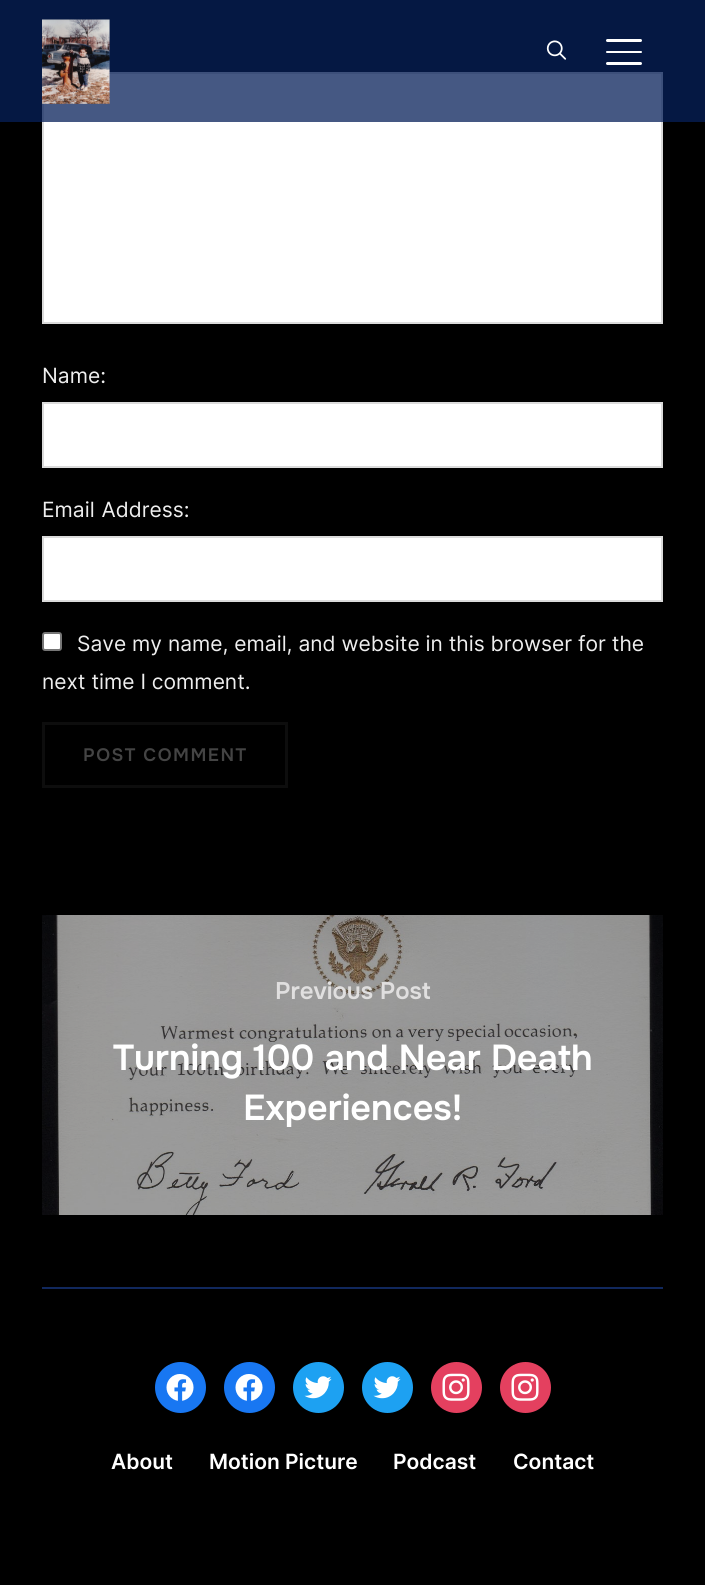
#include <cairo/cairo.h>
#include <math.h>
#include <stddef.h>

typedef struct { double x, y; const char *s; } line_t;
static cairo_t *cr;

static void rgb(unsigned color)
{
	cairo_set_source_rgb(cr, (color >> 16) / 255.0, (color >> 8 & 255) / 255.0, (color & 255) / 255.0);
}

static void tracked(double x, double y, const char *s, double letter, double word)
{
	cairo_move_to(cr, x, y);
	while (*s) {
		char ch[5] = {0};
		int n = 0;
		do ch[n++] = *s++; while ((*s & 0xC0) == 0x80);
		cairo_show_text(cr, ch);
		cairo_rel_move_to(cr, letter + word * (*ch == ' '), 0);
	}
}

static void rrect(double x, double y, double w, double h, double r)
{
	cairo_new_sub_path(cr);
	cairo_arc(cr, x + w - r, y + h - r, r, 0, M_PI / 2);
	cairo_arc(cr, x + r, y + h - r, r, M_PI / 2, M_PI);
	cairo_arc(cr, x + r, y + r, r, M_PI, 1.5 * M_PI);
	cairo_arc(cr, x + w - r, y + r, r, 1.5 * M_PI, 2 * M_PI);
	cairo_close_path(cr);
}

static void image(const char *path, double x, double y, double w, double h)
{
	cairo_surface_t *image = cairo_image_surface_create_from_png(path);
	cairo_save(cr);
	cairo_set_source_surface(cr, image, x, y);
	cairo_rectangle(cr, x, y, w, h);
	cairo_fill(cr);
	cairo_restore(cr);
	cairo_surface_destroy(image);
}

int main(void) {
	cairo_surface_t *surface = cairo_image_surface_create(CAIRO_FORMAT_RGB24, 705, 1585);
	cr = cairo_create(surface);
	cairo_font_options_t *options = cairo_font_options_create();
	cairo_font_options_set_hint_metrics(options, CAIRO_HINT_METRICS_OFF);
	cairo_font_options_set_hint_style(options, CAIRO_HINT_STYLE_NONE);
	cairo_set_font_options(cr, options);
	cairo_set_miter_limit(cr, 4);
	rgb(0x000000);
	cairo_paint(cr);
	rgb(0xffffff);
	cairo_rectangle(cr, 43, 73, 619, 250);
	cairo_fill_preserve(cr);
	rgb(0xdbdbdb);
	cairo_stroke(cr);
	cairo_set_source_rgba(cr, 0.027, 0.125, 0.353, 0.75);
	cairo_rectangle(cr, 0, 0, 705, 122);
	cairo_fill(cr);
	image("img/1.png", 42, 19, 68, 85);
	image("img/2.png", 546, 40, 21, 20);
	rgb(0xffffff);
	rrect(606, 39, 36, 3, 1.5);
	cairo_fill(cr);
	rrect(606, 51, 36, 2, 1);
	cairo_fill(cr);
	rrect(606, 62, 36, 3, 1.5);
	cairo_fill(cr);
	cairo_rectangle(cr, 43, 403, 619, 64);
	cairo_fill_preserve(cr);
	rgb(0xdbdbdb);
	cairo_stroke(cr);
	rgb(0xffffff);
	cairo_rectangle(cr, 43, 537, 619, 64);
	cairo_fill_preserve(cr);
	rgb(0xdbdbdb);
	cairo_stroke(cr);
	rgb(0xffffff);
	rrect(43, 633, 18, 17, 2);
	cairo_fill_preserve(cr);
	rgb(0x767676);
	cairo_stroke(cr);
	cairo_rectangle(cr, 43.5, 723.5, 243, 63);
	rgb(0x0d0d0d);
	cairo_set_line_width(cr, 3);
	cairo_stroke(cr);
	rgb(0x060606);
	cairo_rectangle(cr, 42, 915, 621, 300);
	cairo_fill(cr);
	image("img/3.png", 42, 915, 621, 300);
	rgb(0x11285d);
	cairo_rectangle(cr, 42, 1287, 621, 2);
	cairo_fill(cr);
	rgb(0x1877f2);
	cairo_arc(cr, 180.5, 1387.5, 25.5, 0, 2 * M_PI);
	cairo_fill(cr);
	image("img/4.png", 166, 1374, 28, 27);
	cairo_arc(cr, 249.5, 1387.5, 25.5, 0, 2 * M_PI);
	cairo_fill(cr);
	image("img/4.png", 235, 1374, 28, 27);
	rgb(0x1da1f2);
	cairo_arc(cr, 318.5, 1387.5, 25.5, 0, 2 * M_PI);
	cairo_fill(cr);
	image("img/5.png", 304, 1376, 28, 23);
	cairo_arc(cr, 387.5, 1387.5, 25.5, 0, 2 * M_PI);
	cairo_fill(cr);
	image("img/5.png", 373, 1376, 28, 23);
	rgb(0xe4405f);
	cairo_arc(cr, 456.5, 1387.5, 25.5, 0, 2 * M_PI);
	cairo_fill(cr);
	image("img/6.png", 442, 1373, 28, 28);
	cairo_arc(cr, 525.5, 1387.5, 25.5, 0, 2 * M_PI);
	cairo_fill(cr);
	image("img/6.png", 511, 1373, 28, 28);
	cairo_select_font_face(cr, "Inter", CAIRO_FONT_SLANT_NORMAL, CAIRO_FONT_WEIGHT_NORMAL);
	cairo_set_font_size(cr, 21);
	rgb(0xeeeeee);
	cairo_move_to(cr, 42, 383);
	cairo_show_text(cr, "Name:");
	tracked(42, 517, "Email Address:", 0, 1);
	cairo_move_to(cr, 77, 651);
	cairo_show_text(cr, "Save my name, email, and website in this browser for the");
	cairo_move_to(cr, 42, 689);
	cairo_show_text(cr, "next time I comment.");
	cairo_select_font_face(cr, "Onest SemiBold", CAIRO_FONT_SLANT_NORMAL, CAIRO_FONT_WEIGHT_NORMAL);
	cairo_set_font_size(cr, 18);
	rgb(0x444444);
	tracked(83, 761, "POST COMMENT", 1.5, 0);
	cairo_set_font_size(cr, 24);
	rgb(0xe0dfdf);
	cairo_move_to(cr, 275, 999);
	cairo_show_text(cr, "Previous Post");
	cairo_set_font_size(cr, 36);
	rgb(0xffffff);
	cairo_move_to(cr, 113, 1070);
	cairo_show_text(cr, "Turning 100 and Near Death");
	cairo_move_to(cr, 243, 1120);
	cairo_show_text(cr, "Experiences!");
	cairo_select_font_face(cr, "Inter SemiBold", CAIRO_FONT_SLANT_NORMAL, CAIRO_FONT_WEIGHT_NORMAL);
	cairo_set_font_size(cr, 21);
	{
		static const line_t items[] = {
			{111, 1469, "About"},
			{209, 1469, "Motion Picture"},
			{393, 1469, "Podcast"},
			{513, 1469, "Contact"},
		};
		for (size_t i = 0; i < sizeof items / sizeof *items; i++) {
			cairo_move_to(cr, items[i].x, items[i].y);
			cairo_show_text(cr, items[i].s);
		}
	}
	cairo_surface_write_to_png(surface, "page.png");
	cairo_font_options_destroy(options);
	cairo_destroy(cr);
	cairo_surface_destroy(surface);
	return 0;
}
